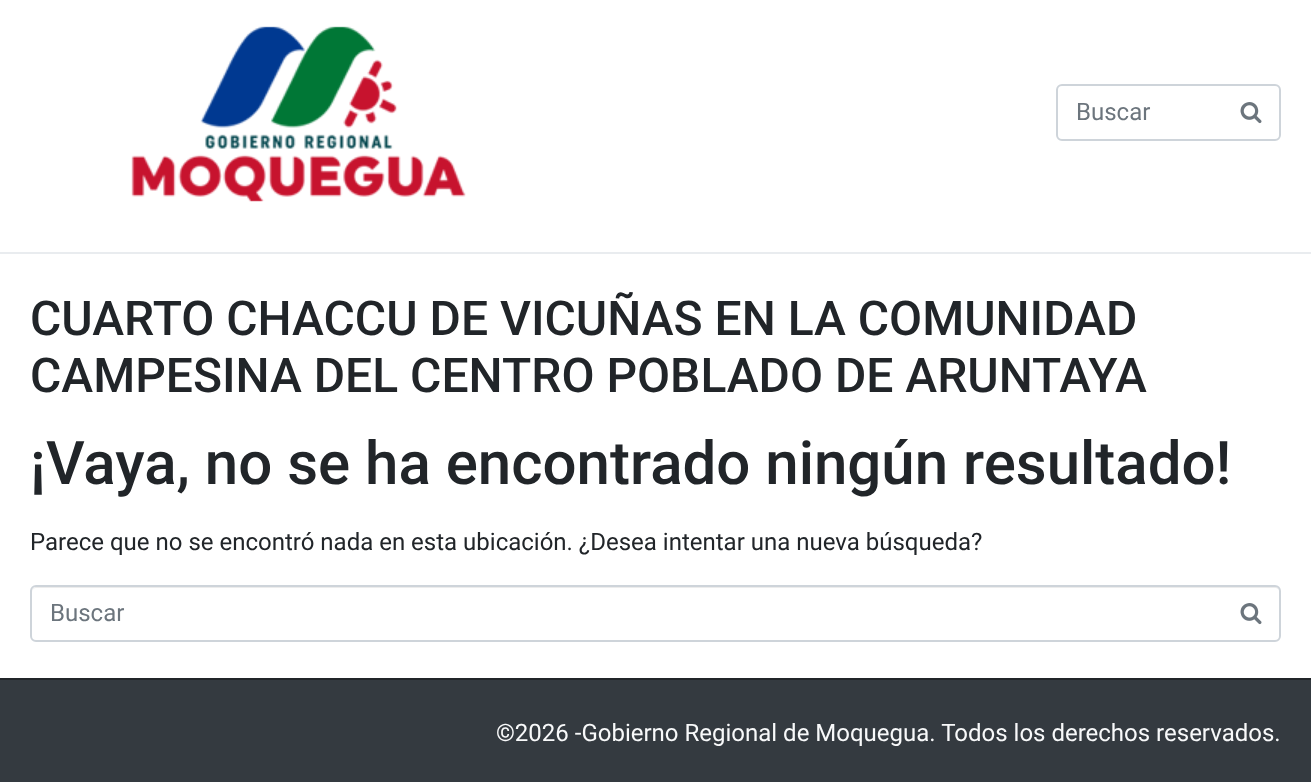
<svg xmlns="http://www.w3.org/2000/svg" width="1311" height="782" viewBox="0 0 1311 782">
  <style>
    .t1 { font: 24px Roboto; fill: #6c757d; }
    .t2 { font: 500 48px Roboto; fill: #212529; }
    .t3 { font: 500 60px Roboto; fill: #212529; }
    .t4 { font: 24px Roboto; fill: #212529; }
    .t5 { font: 24px Roboto; fill: #f8f9fa; }
  </style>
  <rect width="100%" height="100%" fill="#fff"/>
  <rect x="0" y="252" width="1311" height="2" fill="#e9ecef"/>
  <image x="131" y="26" width="335" height="176" href="images/1.png"/>
  <rect x="1057" y="85" width="223" height="55" rx="5" fill="none" stroke="#ced4da" stroke-width="2"/>
  <text x="1076" y="120" class="t1">Buscar</text>
  <image x="1240" y="102" width="22" height="22" href="images/2.png"/>
  <text x="30" y="335" class="t2">CUARTO CHACCU DE VICUÑAS EN LA COMUNIDAD</text>
  <text x="30" y="392" class="t2">CAMPESINA DEL CENTRO POBLADO DE ARUNTAYA</text>
  <text x="30" y="484" class="t3">¡Vaya, no se ha encontrado ningún resultado!</text>
  <text x="30" y="550" class="t4">Parece que no se encontró nada en esta ubicación. ¿Desea intentar una nueva búsqueda?</text>
  <path d="M36 588H1275C1277 588 1280 590 1280 592C1280 589 1278 587 1275 587H37C34 587 32 589 32 592C32 590 34 588 36 588Z" fill="#ececec"/>
  <rect x="31" y="586" width="1249" height="55" rx="5" fill="none" stroke="#ced4da" stroke-width="2"/>
  <text x="50" y="621" class="t1">Buscar</text>
  <image x="1240" y="603" width="22" height="22" href="images/2.png"/>
  <rect x="0" y="680" width="1311" height="102" fill="#343a40"/>
  <rect x="0" y="678" width="1311" height="2" fill="#212529"/>
  <text x="496" y="741" class="t5">©2026 -Gobierno Regional de Moquegua. Todos los derechos reservados.</text>
</svg>
